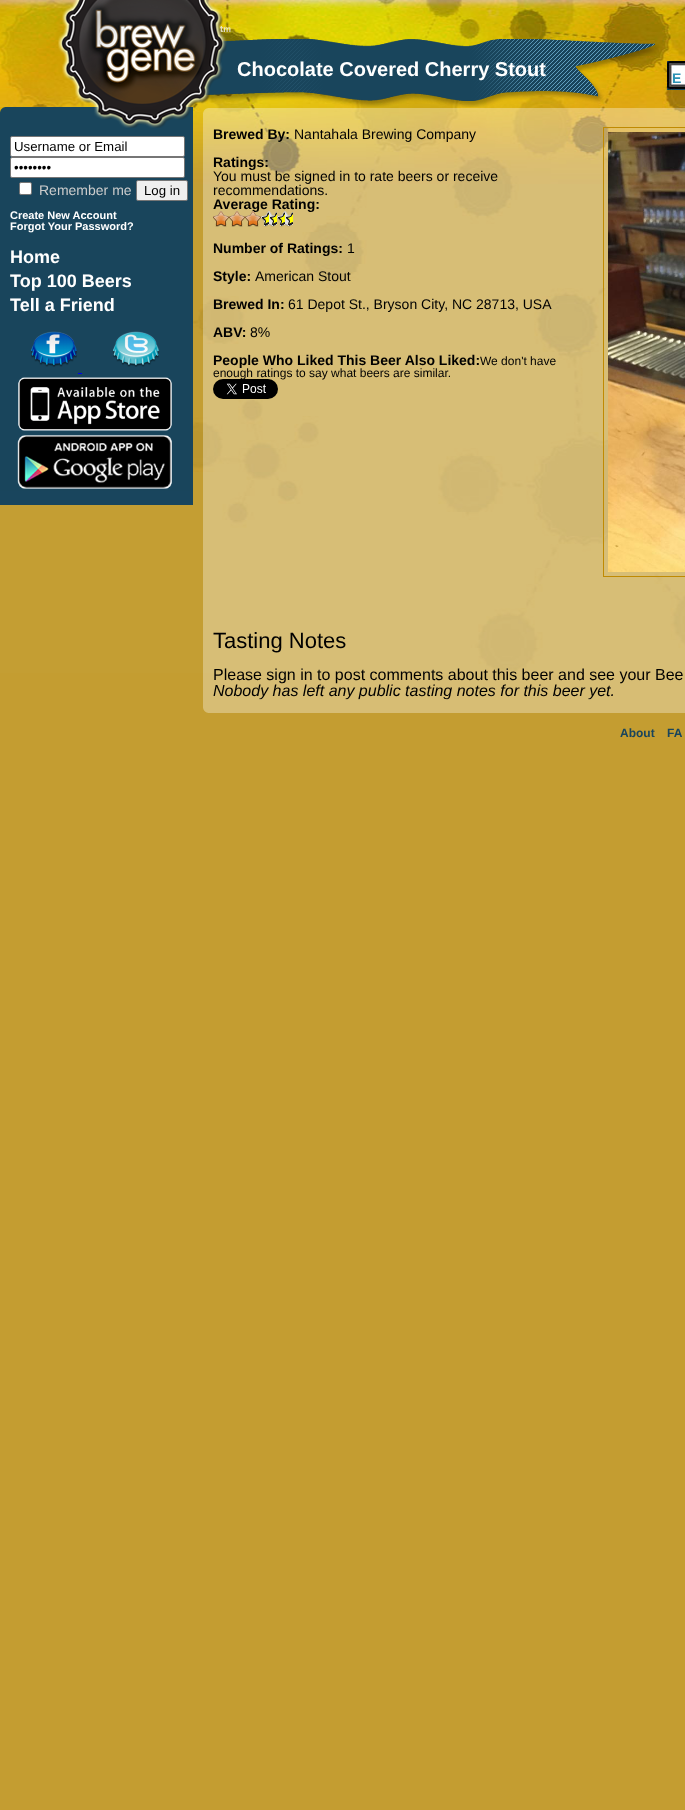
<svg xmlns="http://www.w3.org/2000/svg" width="685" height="1810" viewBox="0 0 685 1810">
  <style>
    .t1 { font: bold 20px Liberation Sans; fill: #fff; }
    .t2 { font: bold 14px Liberation Sans; fill: #2c93b5; }
    .t3 { font: 13.25px Liberation Sans; fill: #000; }
    .t4 { font: 14px Liberation Sans; fill: #ccc; }
    .t5 { font: bold 11px Liberation Sans; fill: #fff; }
    .t6 { font: bold 18px Liberation Sans; fill: #fff; }
    .t7 { font: bold 14px Liberation Sans; fill: #000; }
    .t8 { font: 14px Liberation Sans; fill: #000; }
    .t9 { font: 12px Liberation Sans; fill: #000; }
    .t10 { font: 22px Liberation Sans; fill: #000; }
    .t11 { font: 16px Liberation Sans; fill: #000; }
    .t12 { font: italic 16px Liberation Sans; fill: #000; }
    .t13 { font: bold 12px Liberation Sans; fill: #19455c; }
  </style>
  <rect width="100%" height="100%" fill="#c49d31"/>
  <image x="0" y="0" width="685" height="673" href="images/1.png"/>
  <image x="58" y="0" width="601" height="107" href="images/2.png"/>
  <text x="237" y="76" class="t1">Chocolate Covered Cherry Stout</text>
  <image x="667" y="61" width="18" height="29" href="images/3.png"/>
  <text x="672" y="83" class="t2">E</text>
  <image x="0" y="107" width="193" height="384" href="images/4.png"/>
  <rect x="10.5" y="136.5" width="174" height="20" rx="1.5" fill="#fff" stroke="#767676"/>
  <text x="14" y="151" class="t3">Username or Email</text>
  <rect x="10.5" y="157.5" width="174" height="20" rx="1.5" fill="#fff" stroke="#767676"/>
  <text x="14" y="172" class="t3">••••••••</text>
  <rect x="19.5" y="182.5" width="12" height="12" rx="1.5" fill="#fff" stroke="#767676"/>
  <text x="39" y="195" class="t4">Remember me</text>
  <rect x="136.5" y="180.5" width="51" height="20" rx="1.5" fill="#efefef" stroke="#767676"/>
  <text x="144" y="195" class="t3">Log in</text>
  <text x="10" y="219" class="t5">Create New Account</text>
  <text x="10" y="230" class="t5">Forgot Your Password?</text>
  <text x="10" y="263" class="t6">Home</text>
  <text x="10" y="287" class="t6">Top 100 Beers</text>
  <text x="10" y="311" class="t6">Tell a Friend</text>
  <image x="31" y="331" width="46" height="36" href="images/5.png"/>
  <image x="112" y="331" width="47" height="36" href="images/6.png"/>
  <rect x="78" y="373" width="4" height="1" fill="#00e"/>
  <image x="18" y="377" width="154" height="54" href="images/7.png"/>
  <image x="17" y="435" width="155" height="54" href="images/8.png"/>
  <rect x="0" y="491" width="193" height="14" fill="#19455d"/>
  <image x="203" y="108" width="482" height="9" href="images/9.png"/>
  <rect x="203" y="117" width="482" height="582" fill="#ffffff54"/>
  <text x="213" y="139" class="t7">Brewed By:</text>
  <text x="294" y="139" class="t8">Nantahala Brewing Company</text>
  <text x="213" y="167" class="t7">Ratings:</text>
  <text x="213" y="181" class="t8">You must be signed in to rate beers or receive</text>
  <text x="213" y="195" class="t8">recommendations.</text>
  <text x="213" y="209" class="t7">Average Rating:</text>
  <image x="213" y="211" width="8" height="16" href="images/10.png"/>
  <image x="213" y="211" width="8" height="16" href="images/11.png"/>
  <image x="221" y="211" width="8" height="16" href="images/12.png"/>
  <image x="221" y="211" width="8" height="16" href="images/13.png"/>
  <image x="229" y="211" width="8" height="16" href="images/10.png"/>
  <image x="229" y="211" width="8" height="16" href="images/11.png"/>
  <image x="237" y="211" width="8" height="16" href="images/12.png"/>
  <image x="237" y="211" width="8" height="16" href="images/13.png"/>
  <image x="245" y="211" width="8" height="16" href="images/14.png"/>
  <image x="245" y="211" width="8" height="16" href="images/11.png"/>
  <image x="253" y="211" width="8" height="16" href="images/15.png"/>
  <image x="253" y="211" width="8" height="16" href="images/16.png"/>
  <image x="261" y="211" width="8" height="16" href="images/10.png"/>
  <image x="261" y="212" width="8" height="14" href="images/17.png"/>
  <image x="269" y="211" width="5" height="16" href="images/18.png"/>
  <image x="270" y="212" width="7" height="14" href="images/19.png"/>
  <image x="277" y="211" width="8" height="16" href="images/10.png"/>
  <image x="277" y="212" width="8" height="14" href="images/17.png"/>
  <image x="285" y="211" width="5" height="16" href="images/18.png"/>
  <image x="286" y="212" width="7" height="14" href="images/19.png"/>
  <text x="213" y="253" class="t7">Number of Ratings:</text>
  <text x="347" y="253" class="t8">1</text>
  <text x="213" y="281" class="t7">Style:</text>
  <text x="255" y="281" class="t8">American Stout</text>
  <text x="213" y="309" class="t7">Brewed In:</text>
  <text x="288" y="309" class="t8">61 Depot St., Bryson City, NC 28713, USA</text>
  <text x="213" y="337" class="t7">ABV:</text>
  <text x="250" y="337" class="t8">8%</text>
  <text x="213" y="365" class="t7">People Who Liked This Beer Also Liked:</text>
  <text x="480" y="365" class="t9">We don't have</text>
  <text x="213" y="377" class="t9">enough ratings to say what beers are similar.</text>
  <image x="213" y="379" width="65" height="20" href="images/20.png"/>
  <rect x="603.5" y="127.5" width="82" height="449" fill="none" stroke="#c08a02"/>
  <image x="608" y="132" width="77" height="440" href="images/21.png"/>
  <text x="213" y="648" class="t10">Tasting Notes</text>
  <text x="213" y="680" class="t11">Please sign in to post comments about this beer and see your Bee</text>
  <text x="213" y="696" class="t12">Nobody has left any public tasting notes for this beer yet.</text>
  <image x="203" y="699" width="482" height="14" href="images/22.png"/>
  <text x="620" y="737" class="t13">About</text>
  <text x="667" y="737" class="t13">FA</text>
</svg>
